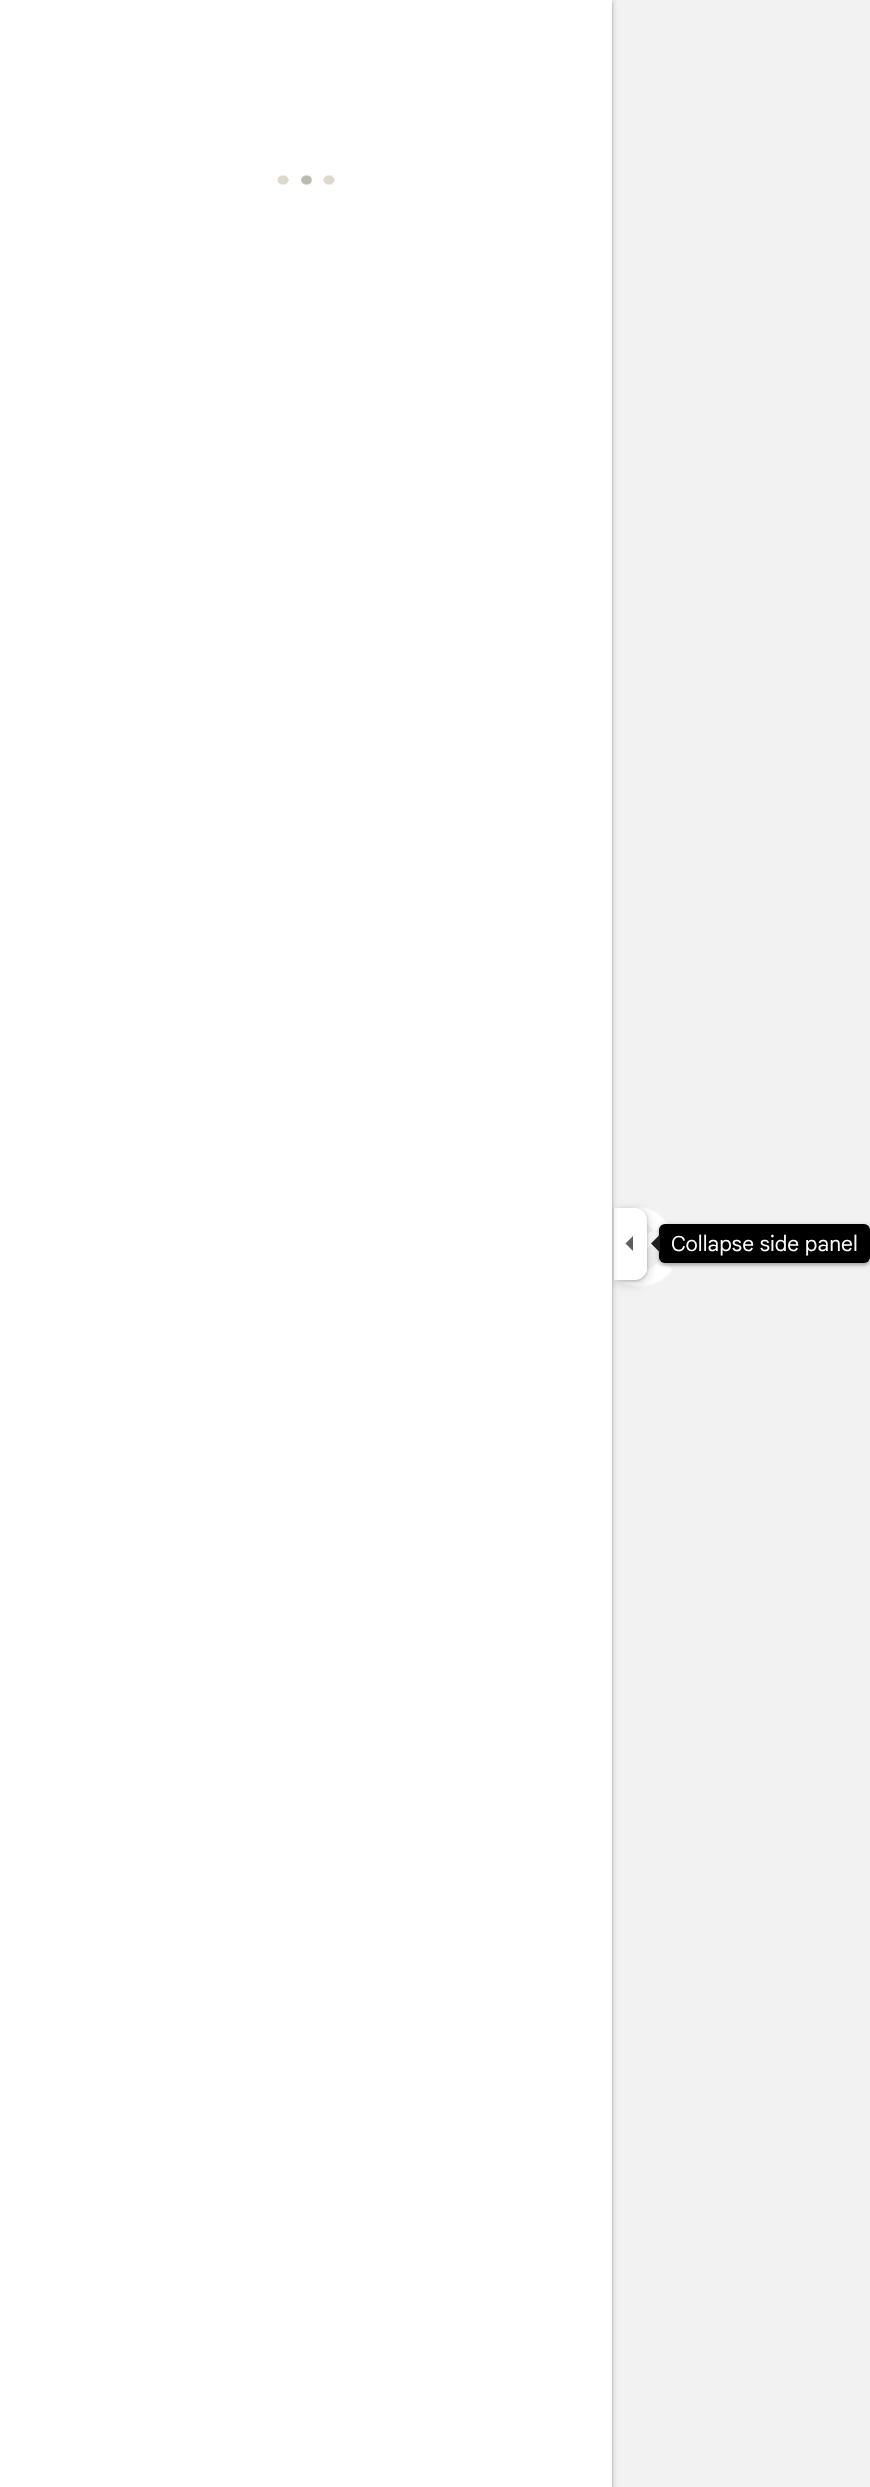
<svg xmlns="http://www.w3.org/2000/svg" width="870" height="2487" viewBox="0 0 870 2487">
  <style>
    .t1 { font: 21px Google Sans; letter-spacing: 0.1px; fill: #fff; }
  </style>
  <rect width="100%" height="100%" fill="#f2f2f2"/>
  <image x="616" y="1205" width="57" height="83" href="images/1.png"/>
  <rect x="609" y="1208" width="41" height="78" rx="15" fill="#3c404326" filter="blur(4.5px)"/>
  <rect x="612" y="1209" width="35" height="72" rx="12" fill="#3c40434d" filter="blur(1.5px)"/>
  <path d="M612 1208H635C641.5 1208 647 1213.5 647 1220V1268C647 1274.5 641.5 1280 635 1280H612Z" fill="#fff"/>
  <rect x="612" y="1208" width="2" height="72" fill="#e3e3e3"/>
  <rect x="-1" y="0" width="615" height="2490" fill="#3c404326" filter="blur(2px)"/>
  <rect x="0" y="2" width="612" height="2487" fill="#3c40434d" filter="blur(1.5px)"/>
  <rect x="0" y="0" width="612" height="2487" fill="#fff"/>
  <image x="277" y="174" width="58" height="12" href="images/2.png"/>
  <path d="M633 1251L625.5 1243.5L633 1236Z" fill="#5e5e5e"/>
  <rect x="657" y="1224" width="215" height="42" rx="8" fill="#3c404326" filter="blur(2px)"/>
  <rect x="659" y="1226" width="211" height="39" rx="6" fill="#3c40434d" filter="blur(1.5px)"/>
  <rect x="659" y="1224" width="211" height="39" rx="6" fill="#000"/>
  <path d="M660 1234.5V1252.5L651 1243.5Z" fill="#1f1f1f"/>
  <text x="671" y="1251" class="t1">Collapse side panel</text>
</svg>
